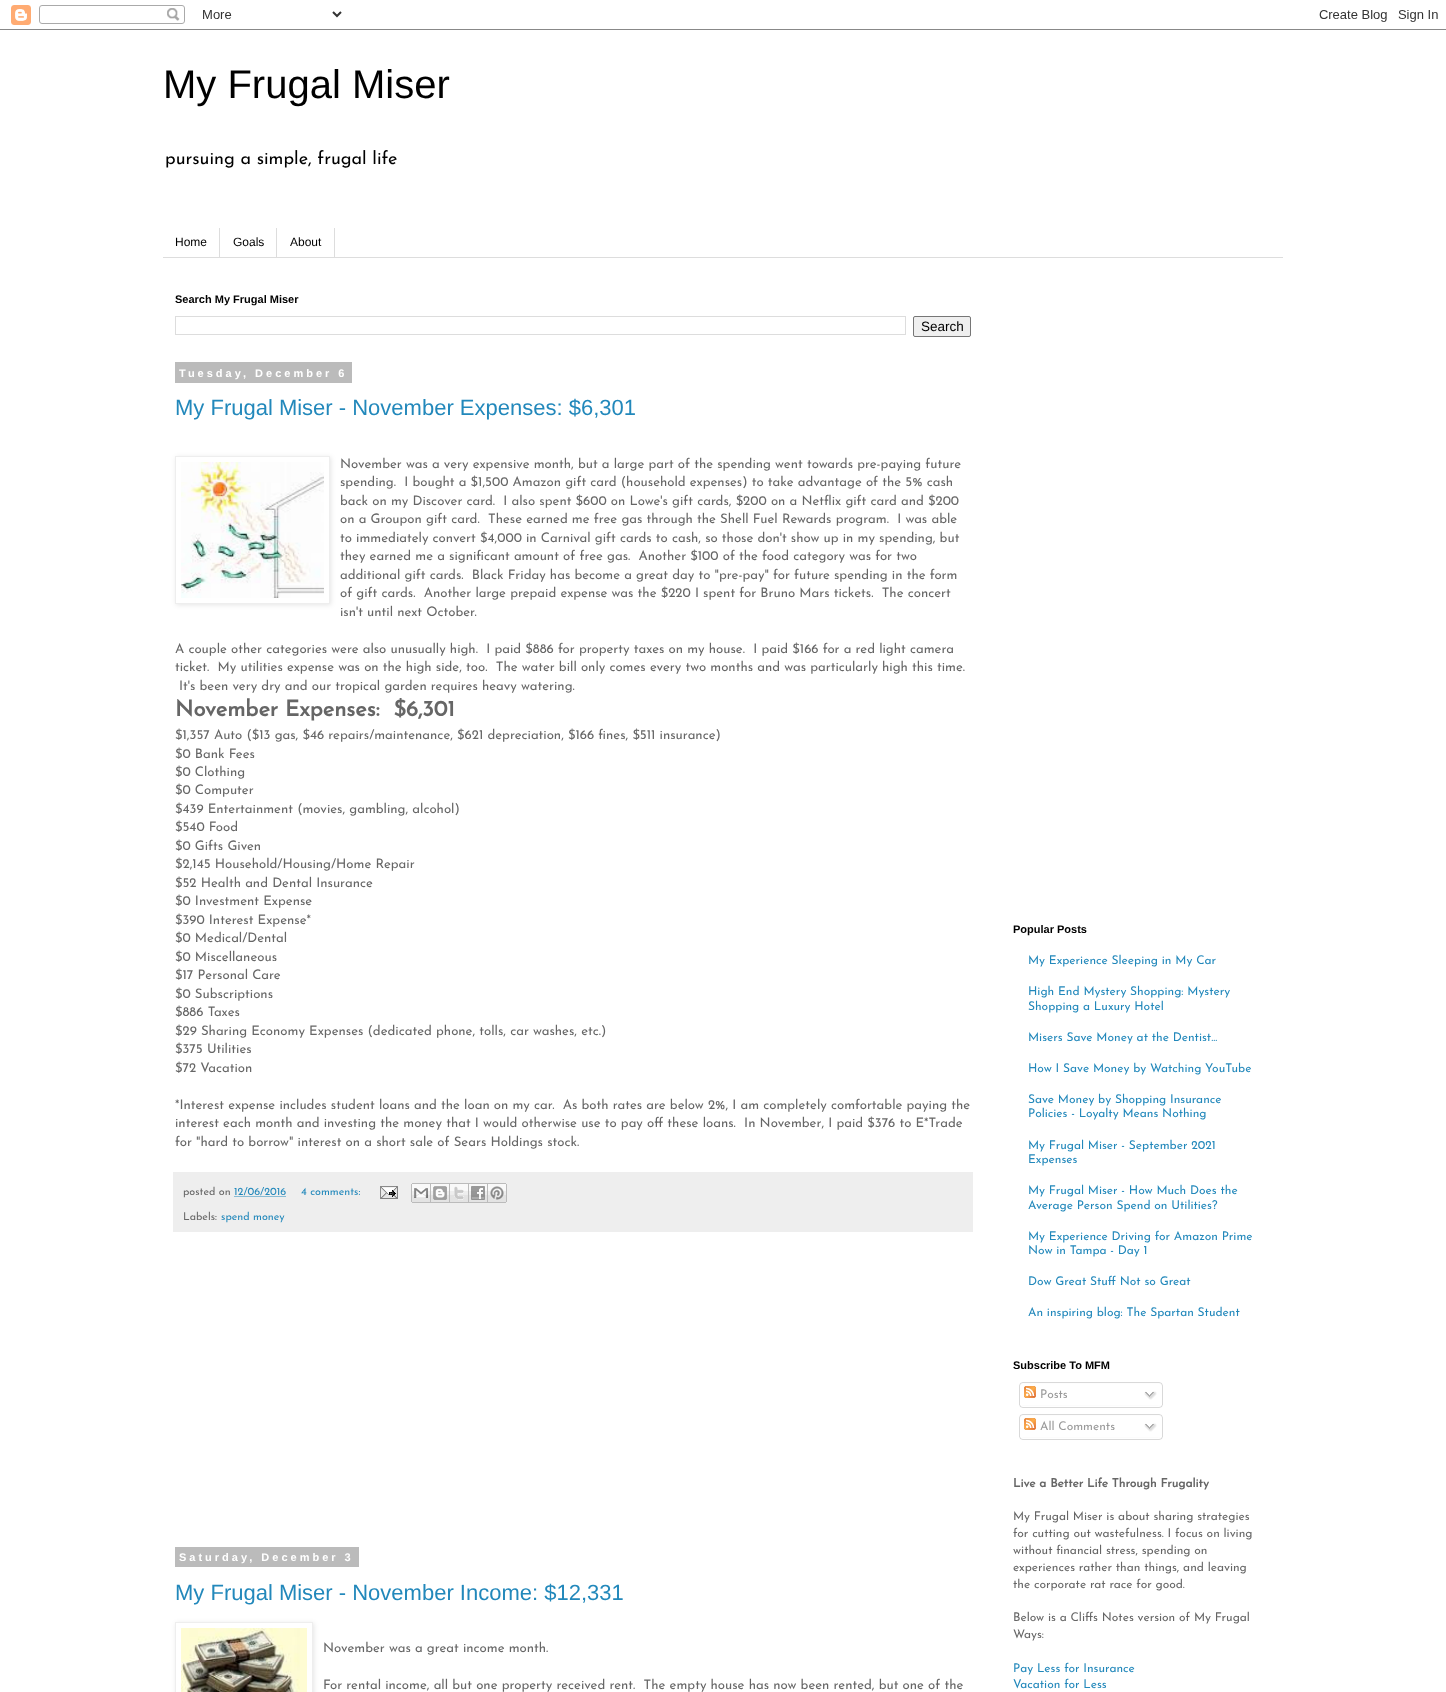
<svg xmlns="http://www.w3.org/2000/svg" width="1446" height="1692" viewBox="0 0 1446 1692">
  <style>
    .t1 { font: 40px Liberation Sans; fill: #000; }
    .t2 { font: 100 18px Josefin Sans; fill: #000; }
    .t3 { font: 12px Liberation Sans; fill: #000; }
    .t4 { font: bold 11px Liberation Sans; fill: #000; }
    .t5 { font: 13.5px Liberation Sans; fill: #000; }
    .t6 { font: bold 11px Liberation Sans; letter-spacing: 3px; fill: #fff; }
    .t7 { font: 22px Liberation Sans; fill: #28b; }
    .t8 { font: 100 13.2px Josefin Sans; fill: #666; }
    .t9 { font: bold 22px Josefin Sans; fill: #666; }
    .t10 { font: 100 10.75px Josefin Sans; fill: #666; }
    .t11 { font: 100 10.75px Josefin Sans; fill: #28b; }
    .t12 { font: 100 12px Josefin Sans; fill: #28b; }
    .t13 { font: 100 12px Josefin Sans; fill: #999; }
    .t14 { font: bold 12px Josefin Sans; fill: #666; }
    .t15 { font: 100 12px Josefin Sans; fill: #666; }
  </style>
  <defs>
    <clipPath id="clip1"><path d="M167 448H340V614H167ZM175 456H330V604H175Z" clip-rule="evenodd"/></clipPath>
    <clipPath id="clip2"><path d="M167 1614H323V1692H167ZM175 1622H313V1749H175Z" clip-rule="evenodd"/></clipPath>
  </defs>
  <rect width="100%" height="100%" fill="#fff"/>
  <image x="0" y="5" width="1446" height="25" href="images/1.png"/>
  <text x="163" y="98" class="t1">My Frugal Miser</text>
  <text x="165" y="164" class="t2">pursuing a simple, frugal life</text>
  <rect x="163" y="257" width="1120" height="1" fill="#ddd"/>
  <rect x="219" y="228" width="1" height="29" fill="#ddd"/>
  <text x="175" y="246" class="t3">Home</text>
  <rect x="276" y="228" width="1" height="29" fill="#ddd"/>
  <text x="233" y="246" class="t3">Goals</text>
  <rect x="334" y="228" width="1" height="29" fill="#ddd"/>
  <text x="290" y="246" class="t3">About</text>
  <text x="175" y="303" class="t4">Search My Frugal Miser</text>
  <rect x="175.5" y="316.5" width="730" height="18" fill="none" stroke="#ddd"/>
  <rect x="913.5" y="316.5" width="57" height="20" rx="1.5" fill="#efefef" stroke="#767676"/>
  <text x="921" y="331" class="t5">Search</text>
  <rect x="175" y="362" width="177" height="21" fill="#bbb"/>
  <text x="179" y="377" class="t6">Tuesday, December 6</text>
  <text x="175" y="415" class="t7">My Frugal Miser - November Expenses: $6,301</text>
  <g clip-path="url(#clip1)">
    <rect x="176" y="457" width="155" height="148" fill="#0000001a" filter="blur(2.5px)"/>
  </g>
  <rect x="175.5" y="456.5" width="154" height="147" fill="none" stroke="#eee"/>
  <image x="181" y="462" width="143" height="136" href="images/2.png"/>
  <text x="340" y="468" class="t8">November was a very expensive month, but a large part of the spending went towards pre-paying future</text>
  <text x="340" y="486" class="t8" xml:space="preserve">spending.  I bought a $1,500 Amazon gift card (household expenses) to take advantage of the 5% cash</text>
  <text x="340" y="505" class="t8" xml:space="preserve">back on my Discover card.  I also spent $600 on Lowe's gift cards, $200 on a Netflix gift card and $200</text>
  <text x="340" y="523" class="t8" xml:space="preserve">on a Groupon gift card.  These earned me free gas through the Shell Fuel Rewards program.  I was able</text>
  <text x="340" y="542" class="t8">to immediately convert $4,000 in Carnival gift cards to cash, so those don't show up in my spending, but</text>
  <text x="340" y="560" class="t8" xml:space="preserve">they earned me a significant amount of free gas.  Another $100 of the food category was for two</text>
  <text x="340" y="579" class="t8" xml:space="preserve">additional gift cards.  Black Friday has become a great day to "pre-pay" for future spending in the form</text>
  <text x="340" y="597" class="t8" xml:space="preserve">of gift cards.  Another large prepaid expense was the $220 I spent for Bruno Mars tickets.  The concert</text>
  <text x="340" y="616" class="t8">isn't until next October.</text>
  <text x="175" y="653" class="t8" xml:space="preserve">A couple other categories were also unusually high.  I paid $886 for property taxes on my house.  I paid $166 for a red light camera</text>
  <text x="175" y="671" class="t8" xml:space="preserve">ticket.  My utilities expense was on the high side, too.  The water bill only comes every two months and was particularly high this time.</text>
  <text x="179" y="690" class="t8">It's been very dry and our tropical garden requires heavy watering.</text>
  <text x="175" y="716" class="t9" xml:space="preserve">November Expenses:  $6,301</text>
  <text x="175" y="739" class="t8">$1,357 Auto ($13 gas, $46 repairs/maintenance, $621 depreciation, $166 fines, $511 insurance)</text>
  <text x="175" y="758" class="t8">$0 Bank Fees</text>
  <text x="175" y="776" class="t8">$0 Clothing</text>
  <text x="175" y="794" class="t8">$0 Computer</text>
  <text x="175" y="813" class="t8">$439 Entertainment (movies, gambling, alcohol)</text>
  <text x="175" y="831" class="t8">$540 Food</text>
  <text x="175" y="850" class="t8">$0 Gifts Given</text>
  <text x="175" y="868" class="t8">$2,145 Household/Housing/Home Repair</text>
  <text x="175" y="887" class="t8">$52 Health and Dental Insurance</text>
  <text x="175" y="905" class="t8">$0 Investment Expense</text>
  <text x="175" y="924" class="t8">$390 Interest Expense*</text>
  <text x="175" y="942" class="t8">$0 Medical/Dental</text>
  <text x="175" y="961" class="t8">$0 Miscellaneous</text>
  <text x="175" y="979" class="t8">$17 Personal Care</text>
  <text x="175" y="998" class="t8">$0 Subscriptions</text>
  <text x="175" y="1016" class="t8">$886 Taxes</text>
  <text x="175" y="1035" class="t8">$29 Sharing Economy Expenses (dedicated phone, tolls, car washes, etc.)</text>
  <text x="175" y="1053" class="t8">$375 Utilities</text>
  <text x="175" y="1072" class="t8">$72 Vacation</text>
  <text x="175" y="1109" class="t8" xml:space="preserve">*Interest expense includes student loans and the loan on my car.  As both rates are below 2%, I am completely comfortable paying the</text>
  <text x="175" y="1127" class="t8" xml:space="preserve">interest each month and investing the money that I would otherwise use to pay off these loans.  In November, I paid $376 to E*Trade</text>
  <text x="175" y="1146" class="t8">for "hard to borrow" interest on a short sale of Sears Holdings stock.</text>
  <rect x="173" y="1172" width="800" height="60" fill="#eee"/>
  <text x="183" y="1195" class="t10">posted on</text>
  <text x="234" y="1195" class="t11">12/06/2016</text>
  <path d="M234.5 1196.5H286.5" fill="none" stroke="#28b" stroke-dasharray="1 1"/>
  <text x="301" y="1195" class="t11">4 comments:</text>
  <image x="380" y="1186" width="18" height="13" href="images/3.png"/>
  <image x="411" y="1183" width="20" height="20" href="images/4.png"/>
  <image x="431" y="1183" width="19" height="20" href="images/5.png"/>
  <image x="450" y="1183" width="19" height="20" href="images/6.png"/>
  <image x="469" y="1183" width="19" height="20" href="images/7.png"/>
  <image x="488" y="1183" width="19" height="20" href="images/8.png"/>
  <text x="183" y="1220" class="t10">Labels:</text>
  <text x="221" y="1220" class="t11">spend money</text>
  <rect x="175" y="1547" width="184" height="20" fill="#bbb"/>
  <text x="179" y="1561" class="t6">Saturday, December 3</text>
  <text x="175" y="1600" class="t7">My Frugal Miser - November Income: $12,331</text>
  <g clip-path="url(#clip2)">
    <rect x="176" y="1623" width="138" height="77" fill="#0000001a" filter="blur(2.5px)"/>
  </g>
  <rect x="175.5" y="1622.5" width="137" height="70" fill="none" stroke="#eee"/>
  <image x="181" y="1628" width="126" height="64" href="images/9.png"/>
  <text x="323" y="1652" class="t8">November was a great income month.</text>
  <text x="323" y="1689" class="t8" xml:space="preserve">For rental income, all but one property received rent.  The empty house has now been rented, but one of the</text>
  <text x="1013" y="933" class="t4">Popular Posts</text>
  <text x="1028" y="964" class="t12">My Experience Sleeping in My Car</text>
  <text x="1028" y="995" class="t12">High End Mystery Shopping: Mystery</text>
  <text x="1028" y="1010" class="t12">Shopping a Luxury Hotel</text>
  <text x="1028" y="1041" class="t12">Misers Save Money at the Dentist...</text>
  <text x="1028" y="1072" class="t12">How I Save Money by Watching YouTube</text>
  <text x="1028" y="1103" class="t12">Save Money by Shopping Insurance</text>
  <text x="1028" y="1117" class="t12">Policies - Loyalty Means Nothing</text>
  <text x="1028" y="1149" class="t12">My Frugal Miser - September 2021</text>
  <text x="1028" y="1163" class="t12">Expenses</text>
  <text x="1028" y="1194" class="t12">My Frugal Miser - How Much Does the</text>
  <text x="1028" y="1209" class="t12">Average Person Spend on Utilities?</text>
  <text x="1028" y="1240" class="t12">My Experience Driving for Amazon Prime</text>
  <text x="1028" y="1254" class="t12">Now in Tampa - Day 1</text>
  <text x="1028" y="1285" class="t12">Dow Great Stuff Not so Great</text>
  <text x="1028" y="1316" class="t12">An inspiring blog: The Spartan Student</text>
  <text x="1013" y="1369" class="t4">Subscribe To MFM</text>
  <image x="1019" y="1382" width="144" height="23" href="images/10.png"/>
  <image x="1024" y="1386" width="12" height="12" href="images/11.png"/>
  <text x="1040" y="1398" class="t13">Posts</text>
  <image x="1144" y="1391" width="13" height="9" href="images/12.png"/>
  <image x="1019" y="1405" width="144" height="3" href="images/13.png"/>
  <image x="1019" y="1414" width="144" height="23" href="images/10.png"/>
  <image x="1024" y="1418" width="12" height="12" href="images/11.png"/>
  <text x="1040" y="1430" class="t13">All Comments</text>
  <image x="1144" y="1423" width="13" height="9" href="images/12.png"/>
  <image x="1019" y="1437" width="144" height="3" href="images/13.png"/>
  <text x="1013" y="1487" class="t14">Live a Better Life Through Frugality</text>
  <text x="1013" y="1520" class="t15">My Frugal Miser is about sharing strategies</text>
  <text x="1013" y="1537" class="t15">for cutting out wastefulness. I focus on living</text>
  <text x="1013" y="1554" class="t15">without financial stress, spending on</text>
  <text x="1013" y="1571" class="t15">experiences rather than things, and leaving</text>
  <text x="1013" y="1588" class="t15">the corporate rat race for good.</text>
  <text x="1013" y="1621" class="t15">Below is a Cliffs Notes version of My Frugal</text>
  <text x="1013" y="1638" class="t15">Ways:</text>
  <text x="1013" y="1672" class="t12">Pay Less for Insurance</text>
  <text x="1013" y="1688" class="t12">Vacation for Less</text>
</svg>
